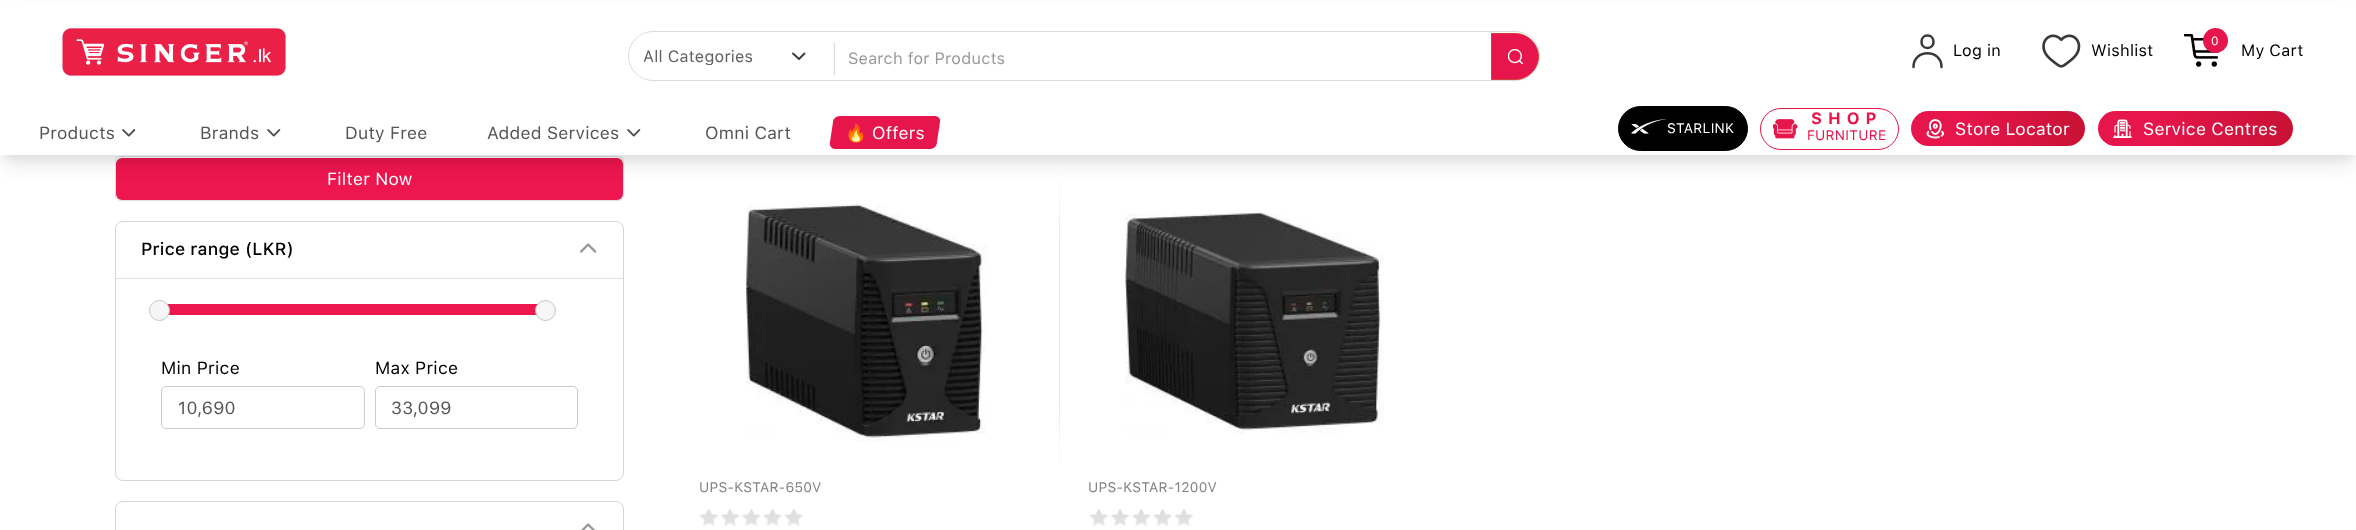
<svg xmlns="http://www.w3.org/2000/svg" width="2356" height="530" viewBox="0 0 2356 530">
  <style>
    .t1 { font: 16.25px SF Pro Text; letter-spacing: 0.25px; fill: #606060; }
    .t2 { font: 16.25px SF Pro Text; letter-spacing: 0.25px; fill: #999; }
    .t3 { font: 16.25px SF Pro Text; letter-spacing: 0.25px; fill: #000; }
    .t4 { font: 12px SF Pro Text; letter-spacing: 0.25px; fill: #fff; }
    .t5 { font: 17.5px SF Pro Text; letter-spacing: 0.25px; fill: #555; }
    .t6 { font: 17.5px Noto Color Emoji; letter-spacing: 0.25px; fill: #fff; }
    .t7 { font: 17.5px SF Pro Text; letter-spacing: 0.25px; fill: #fff; }
    .t8 { font: 13.75px SF Pro Text; letter-spacing: 0.25px; fill: #fff; }
    .t9 { font: bold 16.25px SF Pro Text; letter-spacing: 6px; fill: #e6154b; }
    .t10 { font: 13.75px SF Pro Text; letter-spacing: 0.25px; fill: #e6154b; }
    .t11 { font: 500 17.5px SF Pro Text; letter-spacing: 0.25px; fill: #000; }
    .t12 { font: 17.5px SF Pro Text; letter-spacing: 0.25px; fill: #000; }
    .t13 { font: 13.75px SF Pro Text; letter-spacing: 0.25px; fill: #828282; }
  </style>
  <defs>
    <linearGradient id="g1" gradientUnits="userSpaceOnUse" x1="1059" y1="470" x2="1059" y2="174"><stop offset="0" stop-color="#fff"/><stop offset="0.25" stop-color="#e6e6e6"/><stop offset="0.75" stop-color="#e6e6e6"/><stop offset="1" stop-color="#fff"/></linearGradient>
    <clipPath id="clip1"><rect x="644" y="49" width="135" height="16"/></clipPath>
    <linearGradient id="g2" gradientUnits="userSpaceOnUse" x1="1911" y1="129" x2="2085" y2="129"><stop offset="0.3" stop-color="#e6154b"/><stop offset="1" stop-color="#c81234"/></linearGradient>
    <linearGradient id="g3" gradientUnits="userSpaceOnUse" x1="2098" y1="129" x2="2293" y2="129"><stop offset="0.3" stop-color="#e6154b"/><stop offset="1" stop-color="#c81234"/></linearGradient>
  </defs>
  <rect width="100%" height="100%" fill="#fff"/>
  <rect x="115.5" y="156.5" width="508" height="44" rx="4.5" fill="none" stroke="#dee2e6"/>
  <rect x="116" y="158" width="507" height="42" rx="6" fill="#ed164e"/>
  <rect x="3" y="8" width="2351" height="150" fill="#0000000d" filter="blur(4px)"/>
  <rect x="1059" y="174" width="1" height="296" fill="url(#g1)"/>
  <rect x="4" y="16" width="2349" height="148" fill="#0000001a" filter="blur(9.5px)"/>
  <rect x="0" y="2" width="2356" height="153" fill="#fff"/>
  <image x="62" y="28" width="224" height="48" href="images/1.png"/>
  <rect x="628.5" y="31.5" width="911" height="49" rx="24.5" fill="none" stroke="#dcdcdc"/>
  <path d="M793 53.5L799 59L804.5 53.5" fill="none" stroke="#343a40" stroke-width="1.9" stroke-linecap="round" stroke-linejoin="round"/>
  <g clip-path="url(#clip1)">
    <text x="643" y="62" class="t1">All Categories</text>
  </g>
  <image x="833" y="43" width="2" height="32" href="images/2.png"/>
  <text x="848" y="64" class="t2">Search for Products</text>
  <path d="M1491.5 33.5H1515.5C1528 33.5 1538.5 44 1538.5 56.5C1538.5 69 1528 79.5 1515.5 79.5H1491.5Z" fill="#e6154b" stroke="#d43f3a"/>
  <image x="1508" y="49" width="15" height="15" href="images/3.png"/>
  <path d="M1927.5 48C1935.5 48 1935.5 35.5 1927.5 35.5C1919.5 35.5 1919.5 48 1927.5 48ZM1941.5 67C1941.5 48.5 1913.5 48.5 1913.5 67" fill="none" stroke="#393939" stroke-width="2.5" stroke-linecap="round" stroke-linejoin="round"/>
  <text x="1953" y="56" class="t3">Log in</text>
  <image x="2042" y="34" width="39" height="34" href="images/4.png"/>
  <text x="2091" y="56" class="t3">Wishlist</text>
  <image x="2184" y="34" width="35" height="33" href="images/5.png"/>
  <circle cx="2215.5" cy="40.5" r="12.5" fill="#e6154b"/>
  <text x="2211" y="45" class="t4">0</text>
  <text x="2241" y="56" class="t3">My Cart</text>
  <text x="39" y="139" class="t5">Products</text>
  <image x="122" y="129" width="14" height="8" href="images/6.png"/>
  <text x="200" y="139" class="t5">Brands</text>
  <image x="267" y="129" width="14" height="8" href="images/6.png"/>
  <text x="345" y="139" class="t5">Duty Free</text>
  <text x="487" y="139" class="t5">Added Services</text>
  <image x="627" y="129" width="14" height="8" href="images/6.png"/>
  <text x="705" y="139" class="t5">Omni Cart</text>
  <path d="M840 116H935C938 116 941 119 940 122L937 142C937 146 934 149 930 149H835C832 149 829 146 830 142L833 122C833 119 836 116 840 116Z" fill="#e6154b"/>
  <text x="845" y="139" class="t6">🔥</text>
  <text x="872" y="139" class="t7">Offers</text>
  <rect x="1618.5" y="106.5" width="129" height="44" rx="22" fill="#000" stroke="#000"/>
  <image x="1631" y="119" width="35" height="15" href="images/7.png"/>
  <text x="1667" y="133" class="t8">STARLINK</text>
  <rect x="1760.5" y="108.5" width="138" height="41" rx="20.5" fill="none" stroke="#e6154b"/>
  <image x="1773" y="119" width="25" height="20" href="images/8.png"/>
  <text x="1811" y="124" class="t9">SHOP</text>
  <text x="1807" y="140" class="t10">FURNITURE</text>
  <rect x="1911" y="111" width="174" height="35" rx="17.5" fill="url(#g2)"/>
  <image x="1926" y="119" width="18" height="20" href="images/9.png"/>
  <text x="1955" y="135" class="t7">Store Locator</text>
  <rect x="2098" y="111" width="195" height="35" rx="17.5" fill="url(#g3)"/>
  <image x="2113" y="119" width="19" height="19" href="images/10.png"/>
  <text x="2143" y="135" class="t7">Service Centres</text>
  <text x="327" y="185" class="t7">Filter Now</text>
  <rect x="115.5" y="221.5" width="508" height="259" rx="7.5" fill="none" stroke="#d7d7d7"/>
  <rect x="116" y="278" width="507" height="1" fill="#ddd"/>
  <text x="141" y="255" class="t11">Price range (LKR)</text>
  <image x="580" y="243" width="17" height="10" href="images/11.png"/>
  <rect x="158.5" y="304.5" width="386" height="9" fill="none" stroke="#ed164e"/>
  <rect x="168" y="305" width="369" height="10" fill="#ed164e"/>
  <circle cx="159.5" cy="310.5" r="10" fill="#f6f6f6" stroke="#c5c5c5"/>
  <circle cx="545.5" cy="310.5" r="10" fill="#f6f6f6" stroke="#c5c5c5"/>
  <text x="161" y="374" class="t12">Min Price</text>
  <rect x="161.5" y="386.5" width="203" height="42" rx="4.5" fill="none" stroke="#ccc"/>
  <text x="178" y="414" class="t5">10,690</text>
  <text x="375" y="374" class="t12">Max Price</text>
  <rect x="375.5" y="386.5" width="202" height="42" rx="4.5" fill="none" stroke="#ccc"/>
  <text x="391" y="414" class="t5">33,099</text>
  <rect x="115.5" y="501.5" width="508" height="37" rx="7.5" fill="none" stroke="#d7d7d7"/>
  <image x="581" y="523" width="14" height="7" href="images/12.png"/>
  <image x="746" y="204" width="241" height="238" href="images/13.png"/>
  <text x="699" y="492" class="t13">UPS-KSTAR-650V</text>
  <image x="699" y="508" width="20" height="18" href="images/14.png"/>
  <image x="700" y="510" width="17" height="12" href="images/15.png"/>
  <image x="721" y="508" width="19" height="18" href="images/16.png"/>
  <image x="722" y="510" width="16" height="5" href="images/17.png"/>
  <image x="742" y="508" width="19" height="18" href="images/18.png"/>
  <image x="743" y="510" width="17" height="12" href="images/19.png"/>
  <image x="763" y="508" width="19" height="18" href="images/20.png"/>
  <image x="764" y="510" width="17" height="12" href="images/21.png"/>
  <image x="784" y="508" width="20" height="18" href="images/22.png"/>
  <image x="785" y="510" width="17" height="12" href="images/23.png"/>
  <image x="1124" y="212" width="260" height="222" href="images/24.png"/>
  <text x="1088" y="492" class="t13">UPS-KSTAR-1200V</text>
  <image x="1089" y="508" width="20" height="18" href="images/14.png"/>
  <image x="1090" y="510" width="17" height="12" href="images/15.png"/>
  <image x="1111" y="508" width="19" height="18" href="images/16.png"/>
  <image x="1112" y="510" width="16" height="5" href="images/17.png"/>
  <image x="1132" y="508" width="19" height="18" href="images/18.png"/>
  <image x="1133" y="510" width="17" height="12" href="images/19.png"/>
  <image x="1153" y="508" width="19" height="18" href="images/25.png"/>
  <image x="1154" y="510" width="17" height="12" href="images/26.png"/>
  <image x="1174" y="508" width="20" height="18" href="images/14.png"/>
  <image x="1175" y="510" width="17" height="12" href="images/15.png"/>
</svg>
